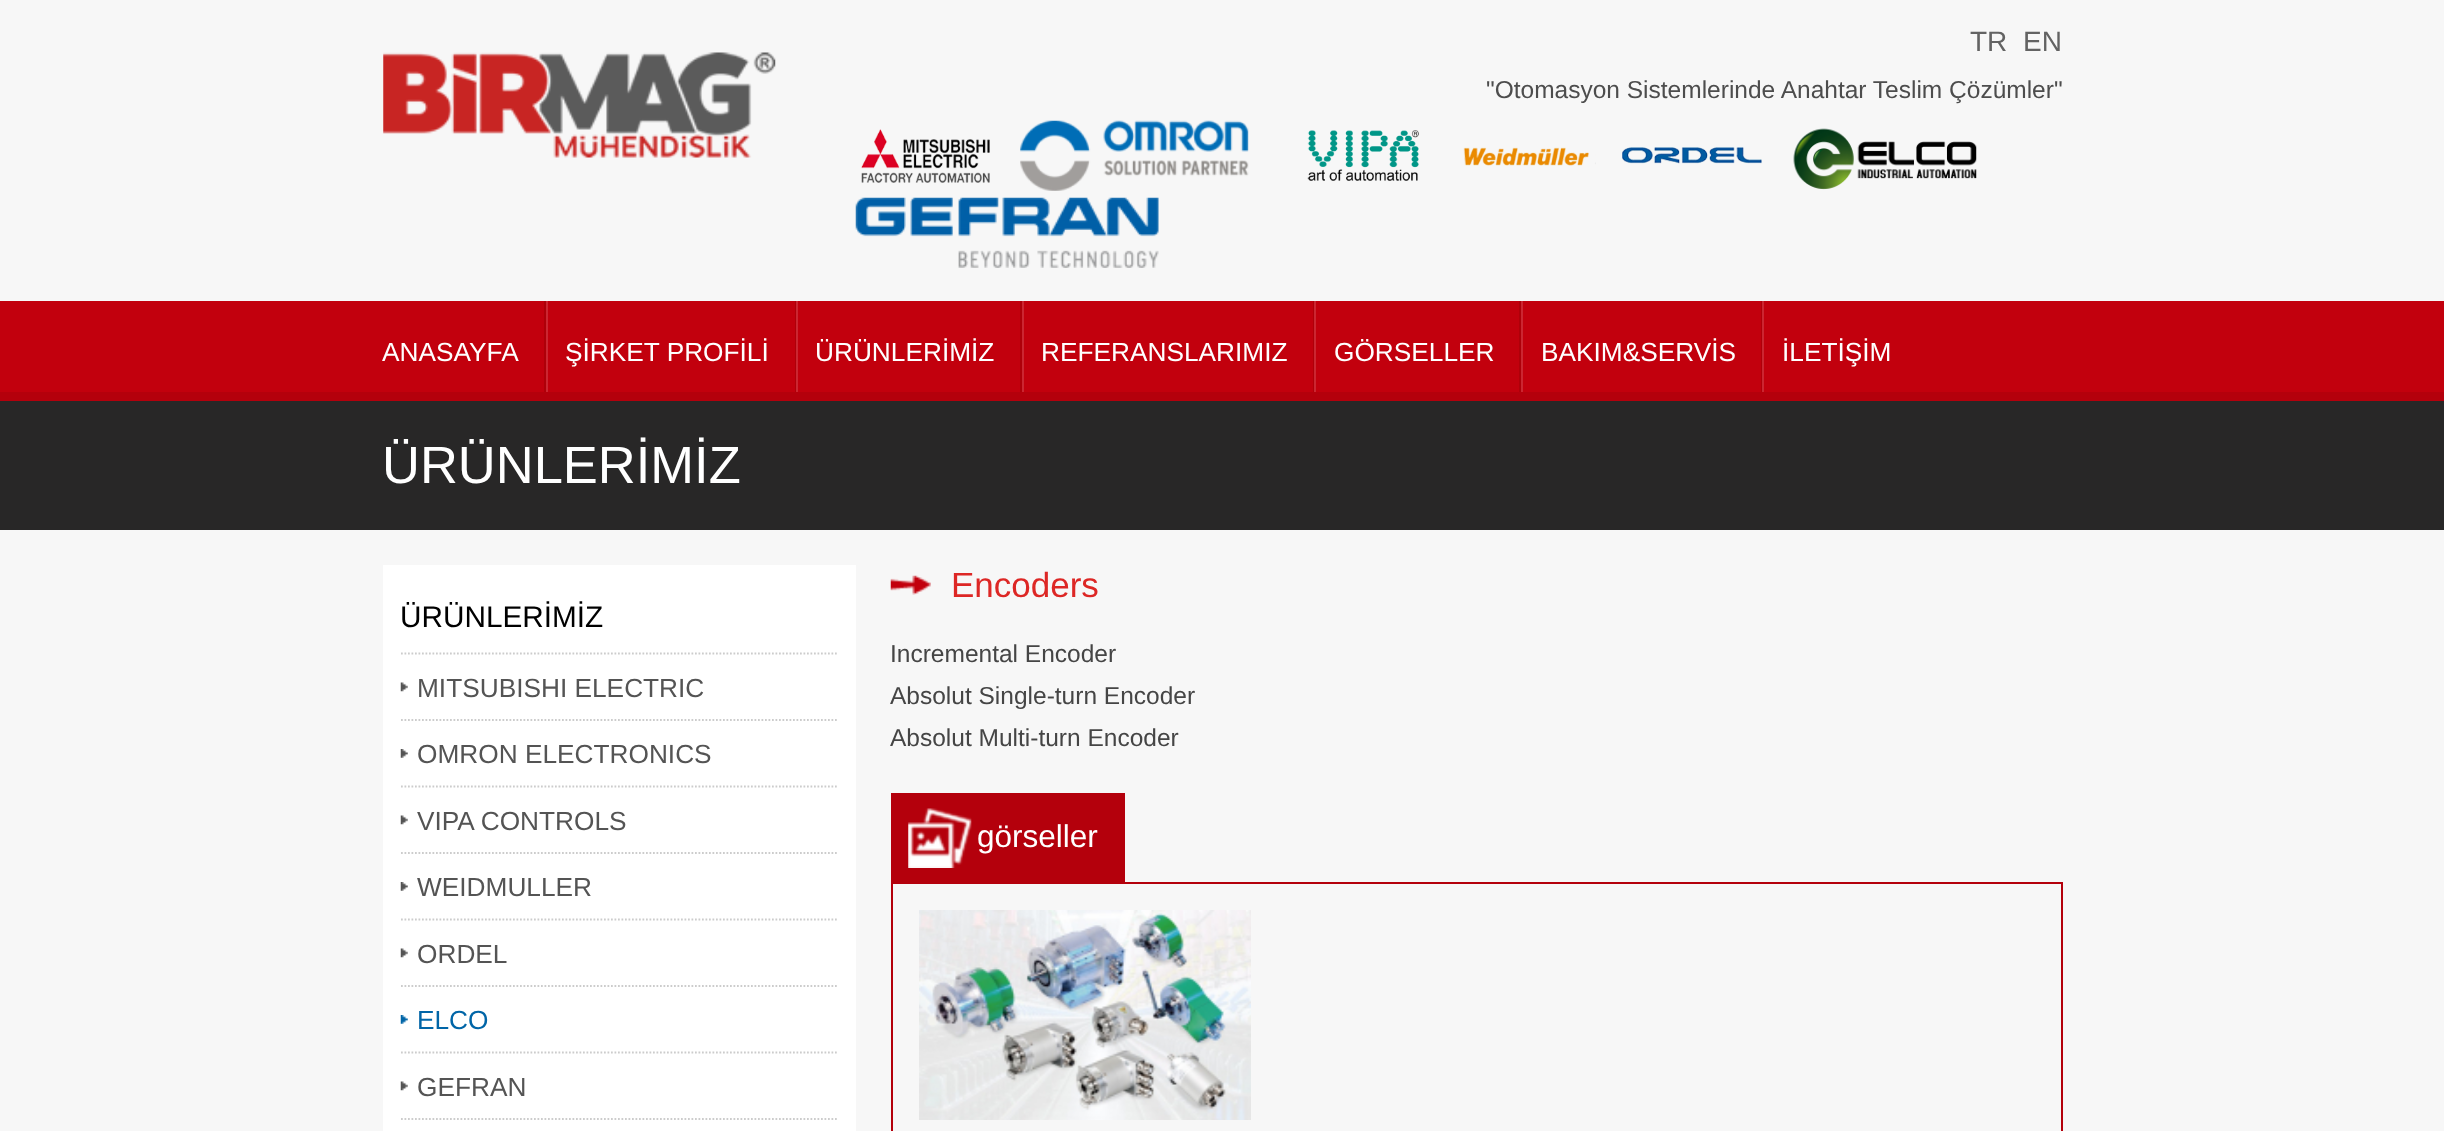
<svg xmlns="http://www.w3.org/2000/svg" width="2444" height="1131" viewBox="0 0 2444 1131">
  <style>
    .t1 { font: 28px Liberation Sans; fill: #636363; }
    .t2 { font: 24.5px Liberation Sans; fill: #4d4d4d; }
    .t3 { font: 26.25px Liberation Sans; fill: #fff; }
    .t4 { font: 52.5px Liberation Sans; fill: #fff; }
    .t5 { font: 29.75px Liberation Sans; fill: #000; }
    .t6 { font: 26.25px Liberation Sans; fill: #545454; }
    .t7 { font: 26.25px Liberation Sans; fill: #0065a7; }
    .t8 { font: 35px Liberation Sans; fill: #dd2725; }
    .t9 { font: 24.5px Liberation Sans; fill: #454545; }
    .t10 { font: 31.5px Liberation Sans; fill: #fff; }
  </style>
  <rect width="100%" height="100%" fill="#f7f7f7"/>
  <image x="383" y="52" width="393" height="106" href="images/1.png"/>
  <text x="1970" y="51" class="t1">TR</text>
  <text x="2023" y="51" class="t1">EN</text>
  <text x="1486" y="98" class="t2">"Otomasyon Sistemlerinde Anahtar Teslim Çözümler"</text>
  <image x="861" y="129" width="129" height="54" href="images/2.png"/>
  <image x="1020" y="120" width="229" height="71" href="images/3.png"/>
  <image x="1307" y="130" width="112" height="51" href="images/4.png"/>
  <image x="1463" y="147" width="133" height="19" href="images/5.png"/>
  <image x="1622" y="147" width="140" height="17" href="images/6.png"/>
  <image x="1793" y="128" width="184" height="62" href="images/7.png"/>
  <image x="855" y="197" width="304" height="71" href="images/8.png"/>
  <rect x="0" y="301" width="2444" height="91" fill="#c2000d"/>
  <rect x="0" y="392" width="2444" height="9" fill="#b4000c"/>
  <text x="382" y="361" class="t3">ANASAYFA</text>
  <rect x="544" y="301" width="2" height="91" fill="#ae0009"/>
  <rect x="546" y="301" width="2" height="91" fill="#cb2631"/>
  <text x="565" y="361" class="t3">ŞİRKET PROFİLİ</text>
  <rect x="795" y="301" width="1" height="91" fill="#ae0009"/>
  <rect x="796" y="301" width="2" height="91" fill="#cb2631"/>
  <text x="815" y="361" class="t3">ÜRÜNLERİMİZ</text>
  <rect x="1020" y="301" width="2" height="91" fill="#ae0009"/>
  <rect x="1022" y="301" width="2" height="91" fill="#cb2631"/>
  <text x="1041" y="361" class="t3">REFERANSLARIMIZ</text>
  <rect x="1313" y="301" width="1" height="91" fill="#ae0009"/>
  <rect x="1314" y="301" width="2" height="91" fill="#cb2631"/>
  <text x="1334" y="361" class="t3">GÖRSELLER</text>
  <rect x="1519" y="301" width="2" height="91" fill="#ae0009"/>
  <rect x="1521" y="301" width="2" height="91" fill="#cb2631"/>
  <text x="1541" y="361" class="t3">BAKIM&amp;SERVİS</text>
  <rect x="1761" y="301" width="1" height="91" fill="#ae0009"/>
  <rect x="1762" y="301" width="2" height="91" fill="#cb2631"/>
  <text x="1782" y="361" class="t3">İLETİŞİM</text>
  <rect x="0" y="401" width="2444" height="129" fill="#282727"/>
  <text x="382" y="483" class="t4">ÜRÜNLERİMİZ</text>
  <rect x="383" y="565" width="473" height="566" fill="#fff"/>
  <text x="400" y="627" class="t5">ÜRÜNLERİMİZ</text>
  <path d="M401 653.5H838" fill="none" stroke="#ccc" stroke-width="1.8" stroke-dasharray="1.75 1.75"/>
  <image x="400" y="682" width="8" height="10" href="images/9.png"/>
  <text x="417" y="697" class="t6">MITSUBISHI ELECTRIC</text>
  <path d="M401 720H838" fill="none" stroke="#ccc" stroke-width="1.8" stroke-dasharray="1.75 1.75"/>
  <image x="400" y="749" width="8" height="9" href="images/10.png"/>
  <text x="417" y="763" class="t6">OMRON ELECTRONICS</text>
  <path d="M401 786.5H838" fill="none" stroke="#ccc" stroke-width="1.8" stroke-dasharray="1.75 1.75"/>
  <image x="400" y="815" width="8" height="10" href="images/9.png"/>
  <text x="417" y="830" class="t6">VIPA CONTROLS</text>
  <path d="M401 853H838" fill="none" stroke="#ccc" stroke-width="1.8" stroke-dasharray="1.75 1.75"/>
  <image x="400" y="882" width="8" height="9" href="images/10.png"/>
  <text x="417" y="896" class="t6">WEIDMULLER</text>
  <path d="M401 919.5H838" fill="none" stroke="#ccc" stroke-width="1.8" stroke-dasharray="1.75 1.75"/>
  <image x="400" y="948" width="8" height="10" href="images/9.png"/>
  <text x="417" y="963" class="t6">ORDEL</text>
  <path d="M401 986H838" fill="none" stroke="#ccc" stroke-width="1.8" stroke-dasharray="1.75 1.75"/>
  <image x="400" y="1015" width="8" height="9" href="images/11.png"/>
  <text x="417" y="1029" class="t7">ELCO</text>
  <path d="M401 1052.5H838" fill="none" stroke="#ccc" stroke-width="1.8" stroke-dasharray="1.75 1.75"/>
  <image x="400" y="1081" width="8" height="10" href="images/9.png"/>
  <text x="417" y="1096" class="t6">GEFRAN</text>
  <path d="M401 1119H838" fill="none" stroke="#ccc" stroke-width="1.8" stroke-dasharray="1.75 1.75"/>
  <image x="890" y="575" width="41" height="20" href="images/12.png"/>
  <text x="951" y="597" class="t8">Encoders</text>
  <text x="890" y="662" class="t9">Incremental Encoder</text>
  <text x="890" y="704" class="t9">Absolut Single-turn Encoder</text>
  <text x="890" y="746" class="t9">Absolut Multi-turn Encoder</text>
  <rect x="891" y="793" width="234" height="89" fill="#b4000c"/>
  <image x="908" y="808" width="64" height="60" href="images/13.png"/>
  <text x="977" y="847" class="t10">görseller</text>
  <rect x="892" y="883" width="1170" height="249" fill="none" stroke="#b4000c" stroke-width="2"/>
  <image x="919" y="910" width="332" height="210" href="images/14.png"/>
</svg>
